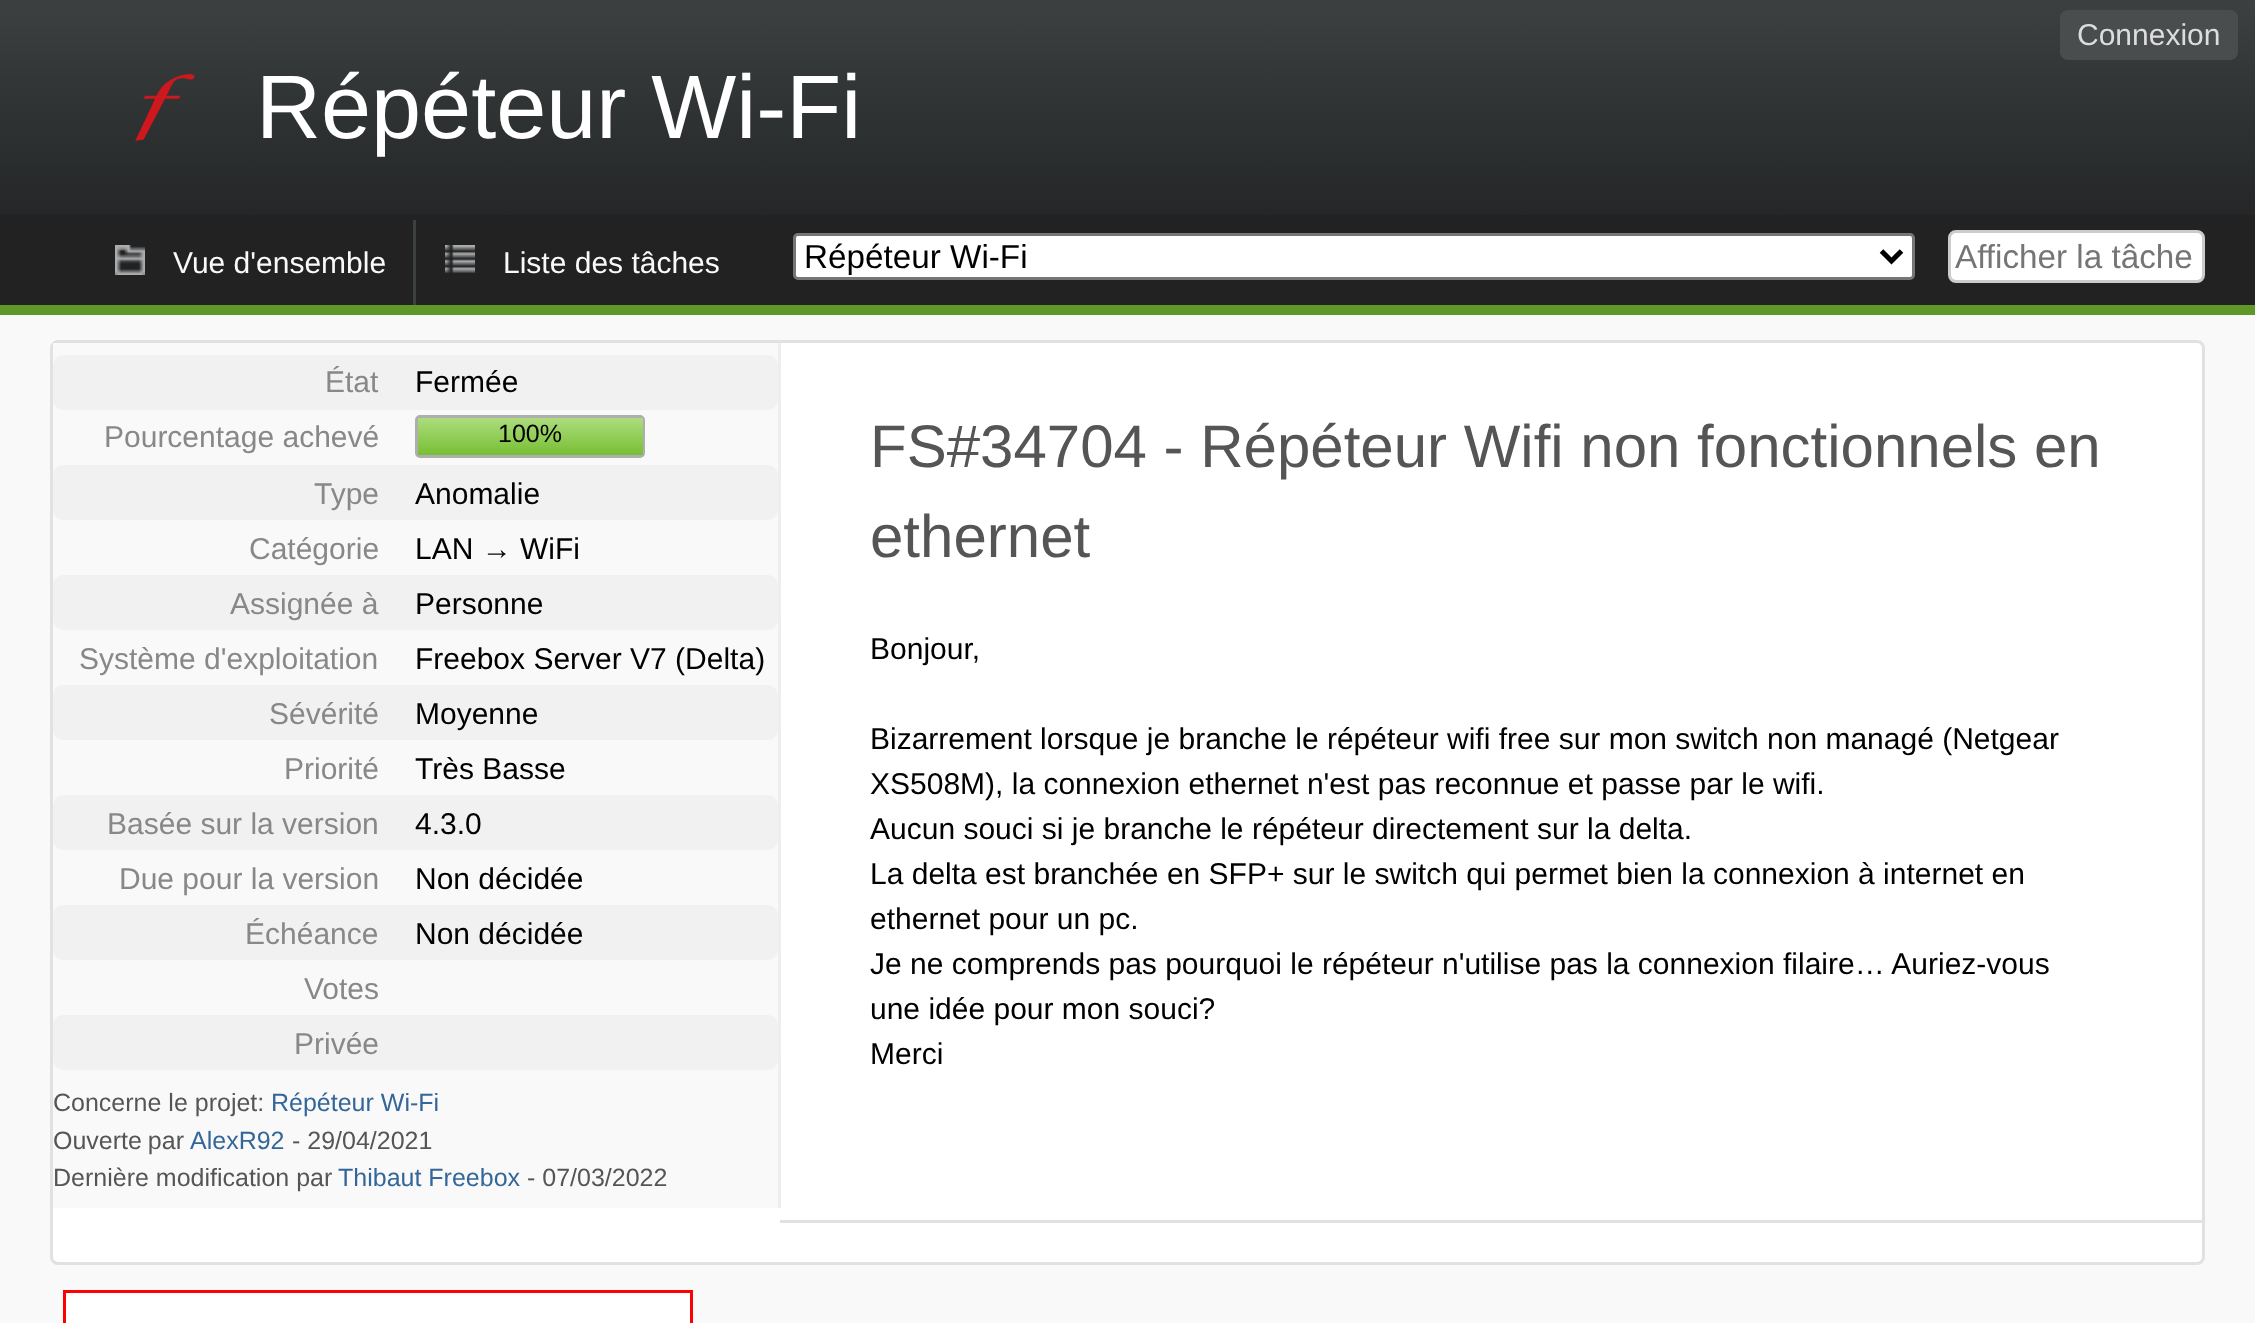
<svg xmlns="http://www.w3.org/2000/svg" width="2255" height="1323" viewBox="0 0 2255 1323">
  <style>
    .t1 { font: 30px Liberation Sans; fill: #ddd; }
    .t2 { font: 90px Liberation Sans; fill: #fff; }
    .t3 { font: 30px Liberation Sans; fill: #f9f9f9; }
    .t4 { font: 33.25px Liberation Sans; fill: #000; }
    .t5 { font: 33.25px Liberation Sans; fill: #757575; }
    .t6 { font: 30px Liberation Sans; fill: #888; }
    .t7 { font: 30px Liberation Sans; fill: #000; }
    .t8 { font: 25px Liberation Sans; fill: #000; }
    .t9 { font: 25px Liberation Sans; fill: #555; }
    .t10 { font: 25px Liberation Sans; fill: #369; }
    .t11 { font: 60px Liberation Sans; fill: #555; }
  </style>
  <defs>
    <linearGradient id="g1" gradientUnits="userSpaceOnUse" x1="1128" y1="0" x2="1128" y2="215"><stop offset="0" stop-color="#3c4041"/><stop offset="1" stop-color="#242627"/></linearGradient>
    <linearGradient id="g2" gradientUnits="userSpaceOnUse" x1="530" y1="418" x2="530" y2="455"><stop offset="0" stop-color="#acdc7d"/><stop offset="1" stop-color="#78bf34"/></linearGradient>
  </defs>
  <rect width="100%" height="100%" fill="#f9f9f9"/>
  <rect x="0" y="0" width="2255" height="215" fill="url(#g1)"/>
  <rect x="2060" y="10" width="178" height="50" rx="8" fill="#494d4e"/>
  <text x="2077" y="45" class="t1">Connexion</text>
  <image x="135" y="74" width="60" height="67" href="images/1.png"/>
  <text x="256" y="138" class="t2">Répéteur Wi-Fi</text>
  <rect x="0" y="215" width="2255" height="90" fill="#222"/>
  <rect x="0" y="305" width="2255" height="10" fill="#5f9729"/>
  <image x="115" y="245" width="30" height="30" href="images/2.png"/>
  <text x="173" y="273" class="t3">Vue d'ensemble</text>
  <image x="445" y="245" width="30" height="28" href="images/3.png"/>
  <rect x="413" y="220" width="3" height="85" fill="#3c4041"/>
  <text x="503" y="273" class="t3">Liste des tâches</text>
  <rect x="794.5" y="234.5" width="1119" height="44" rx="3.5" fill="#fff" stroke="#767676" stroke-width="3"/>
  <path d="M1881.5 251L1891.5 261L1901.5 251" fill="none" stroke="#000" stroke-width="5"/>
  <text x="804" y="268" class="t4">Répéteur Wi-Fi</text>
  <rect x="1949.5" y="231.5" width="254" height="50" rx="6.5" fill="#fff" stroke="#ccc" stroke-width="3"/>
  <text x="1955" y="268" class="t5">Afficher la tâche</text>
  <rect x="51.5" y="341.5" width="2152" height="922" rx="6.5" fill="#fff" stroke="#e1e1e1" stroke-width="3"/>
  <rect x="53" y="343" width="725" height="865" fill="#f9f9f9"/>
  <rect x="778" y="343" width="3" height="865" fill="#eee"/>
  <rect x="53" y="355" width="725" height="55" rx="10" fill="#f1f1f1"/>
  <text x="325" y="392" class="t6">État</text>
  <text x="415" y="392" class="t7">Fermée</text>
  <text x="104" y="447" class="t6">Pourcentage achevé</text>
  <rect x="416.5" y="416.5" width="227" height="40" rx="3.5" fill="none" stroke="#aeaeae" stroke-width="3"/>
  <rect x="418" y="418" width="225" height="37" fill="url(#g2)"/>
  <text x="498" y="442" class="t8">100%</text>
  <rect x="53" y="465" width="725" height="55" rx="10" fill="#f1f1f1"/>
  <text x="314" y="504" class="t6">Type</text>
  <text x="415" y="504" class="t7">Anomalie</text>
  <text x="249" y="559" class="t6">Catégorie</text>
  <text x="415" y="559" class="t7">LAN → WiFi</text>
  <rect x="53" y="575" width="725" height="55" rx="10" fill="#f1f1f1"/>
  <text x="230" y="614" class="t6">Assignée à</text>
  <text x="415" y="614" class="t7">Personne</text>
  <text x="79" y="669" class="t6">Système d'exploitation</text>
  <text x="415" y="669" class="t7">Freebox Server V7 (Delta)</text>
  <rect x="53" y="685" width="725" height="55" rx="10" fill="#f1f1f1"/>
  <text x="269" y="724" class="t6">Sévérité</text>
  <text x="415" y="724" class="t7">Moyenne</text>
  <text x="284" y="779" class="t6">Priorité</text>
  <text x="415" y="779" class="t7">Très Basse</text>
  <rect x="53" y="795" width="725" height="55" rx="10" fill="#f1f1f1"/>
  <text x="107" y="834" class="t6">Basée sur la version</text>
  <text x="415" y="834" class="t7">4.3.0</text>
  <text x="119" y="889" class="t6">Due pour la version</text>
  <text x="415" y="889" class="t7">Non décidée</text>
  <rect x="53" y="905" width="725" height="55" rx="10" fill="#f1f1f1"/>
  <text x="245" y="944" class="t6">Échéance</text>
  <text x="415" y="944" class="t7">Non décidée</text>
  <text x="304" y="999" class="t6">Votes</text>
  <rect x="53" y="1015" width="725" height="55" rx="10" fill="#f1f1f1"/>
  <text x="294" y="1054" class="t6">Privée</text>
  <text x="53" y="1111" class="t9">Concerne le projet:</text>
  <text x="271" y="1111" class="t10">Répéteur Wi-Fi</text>
  <text x="53" y="1149" word-spacing="-1" class="t9">Ouverte par</text>
  <text x="190" y="1149" class="t10">AlexR92</text>
  <text x="292" y="1149" class="t9">- 29/04/2021</text>
  <text x="53" y="1186" class="t9">Dernière modification par</text>
  <text x="338" y="1186" class="t10">Thibaut Freebox</text>
  <text x="527" y="1186" class="t9">- 07/03/2022</text>
  <text x="870" y="467" class="t11">FS#34704 - Répéteur Wifi non fonctionnels en</text>
  <text x="870" y="557" class="t11">ethernet</text>
  <text x="870" y="659" class="t7">Bonjour,</text>
  <text x="870" y="749" class="t7">Bizarrement lorsque je branche le répéteur wifi free sur mon switch non managé (Netgear</text>
  <text x="870" y="794" class="t7">XS508M), la connexion ethernet n'est pas reconnue et passe par le wifi.</text>
  <text x="870" y="839" class="t7">Aucun souci si je branche le répéteur directement sur la delta.</text>
  <text x="870" y="884" class="t7">La delta est branchée en SFP+ sur le switch qui permet bien la connexion à internet en</text>
  <text x="870" y="929" class="t7">ethernet pour un pc.</text>
  <text x="870" y="974" class="t7">Je ne comprends pas pourquoi le répéteur n'utilise pas la connexion filaire… Auriez-vous</text>
  <text x="870" y="1019" class="t7">une idée pour mon souci?</text>
  <text x="870" y="1064" class="t7">Merci</text>
  <rect x="780" y="1220" width="1423" height="3" fill="#e1e1e1"/>
  <rect x="64.5" y="1291.5" width="627" height="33" fill="#fff" stroke="#f00" stroke-width="3"/>
</svg>
